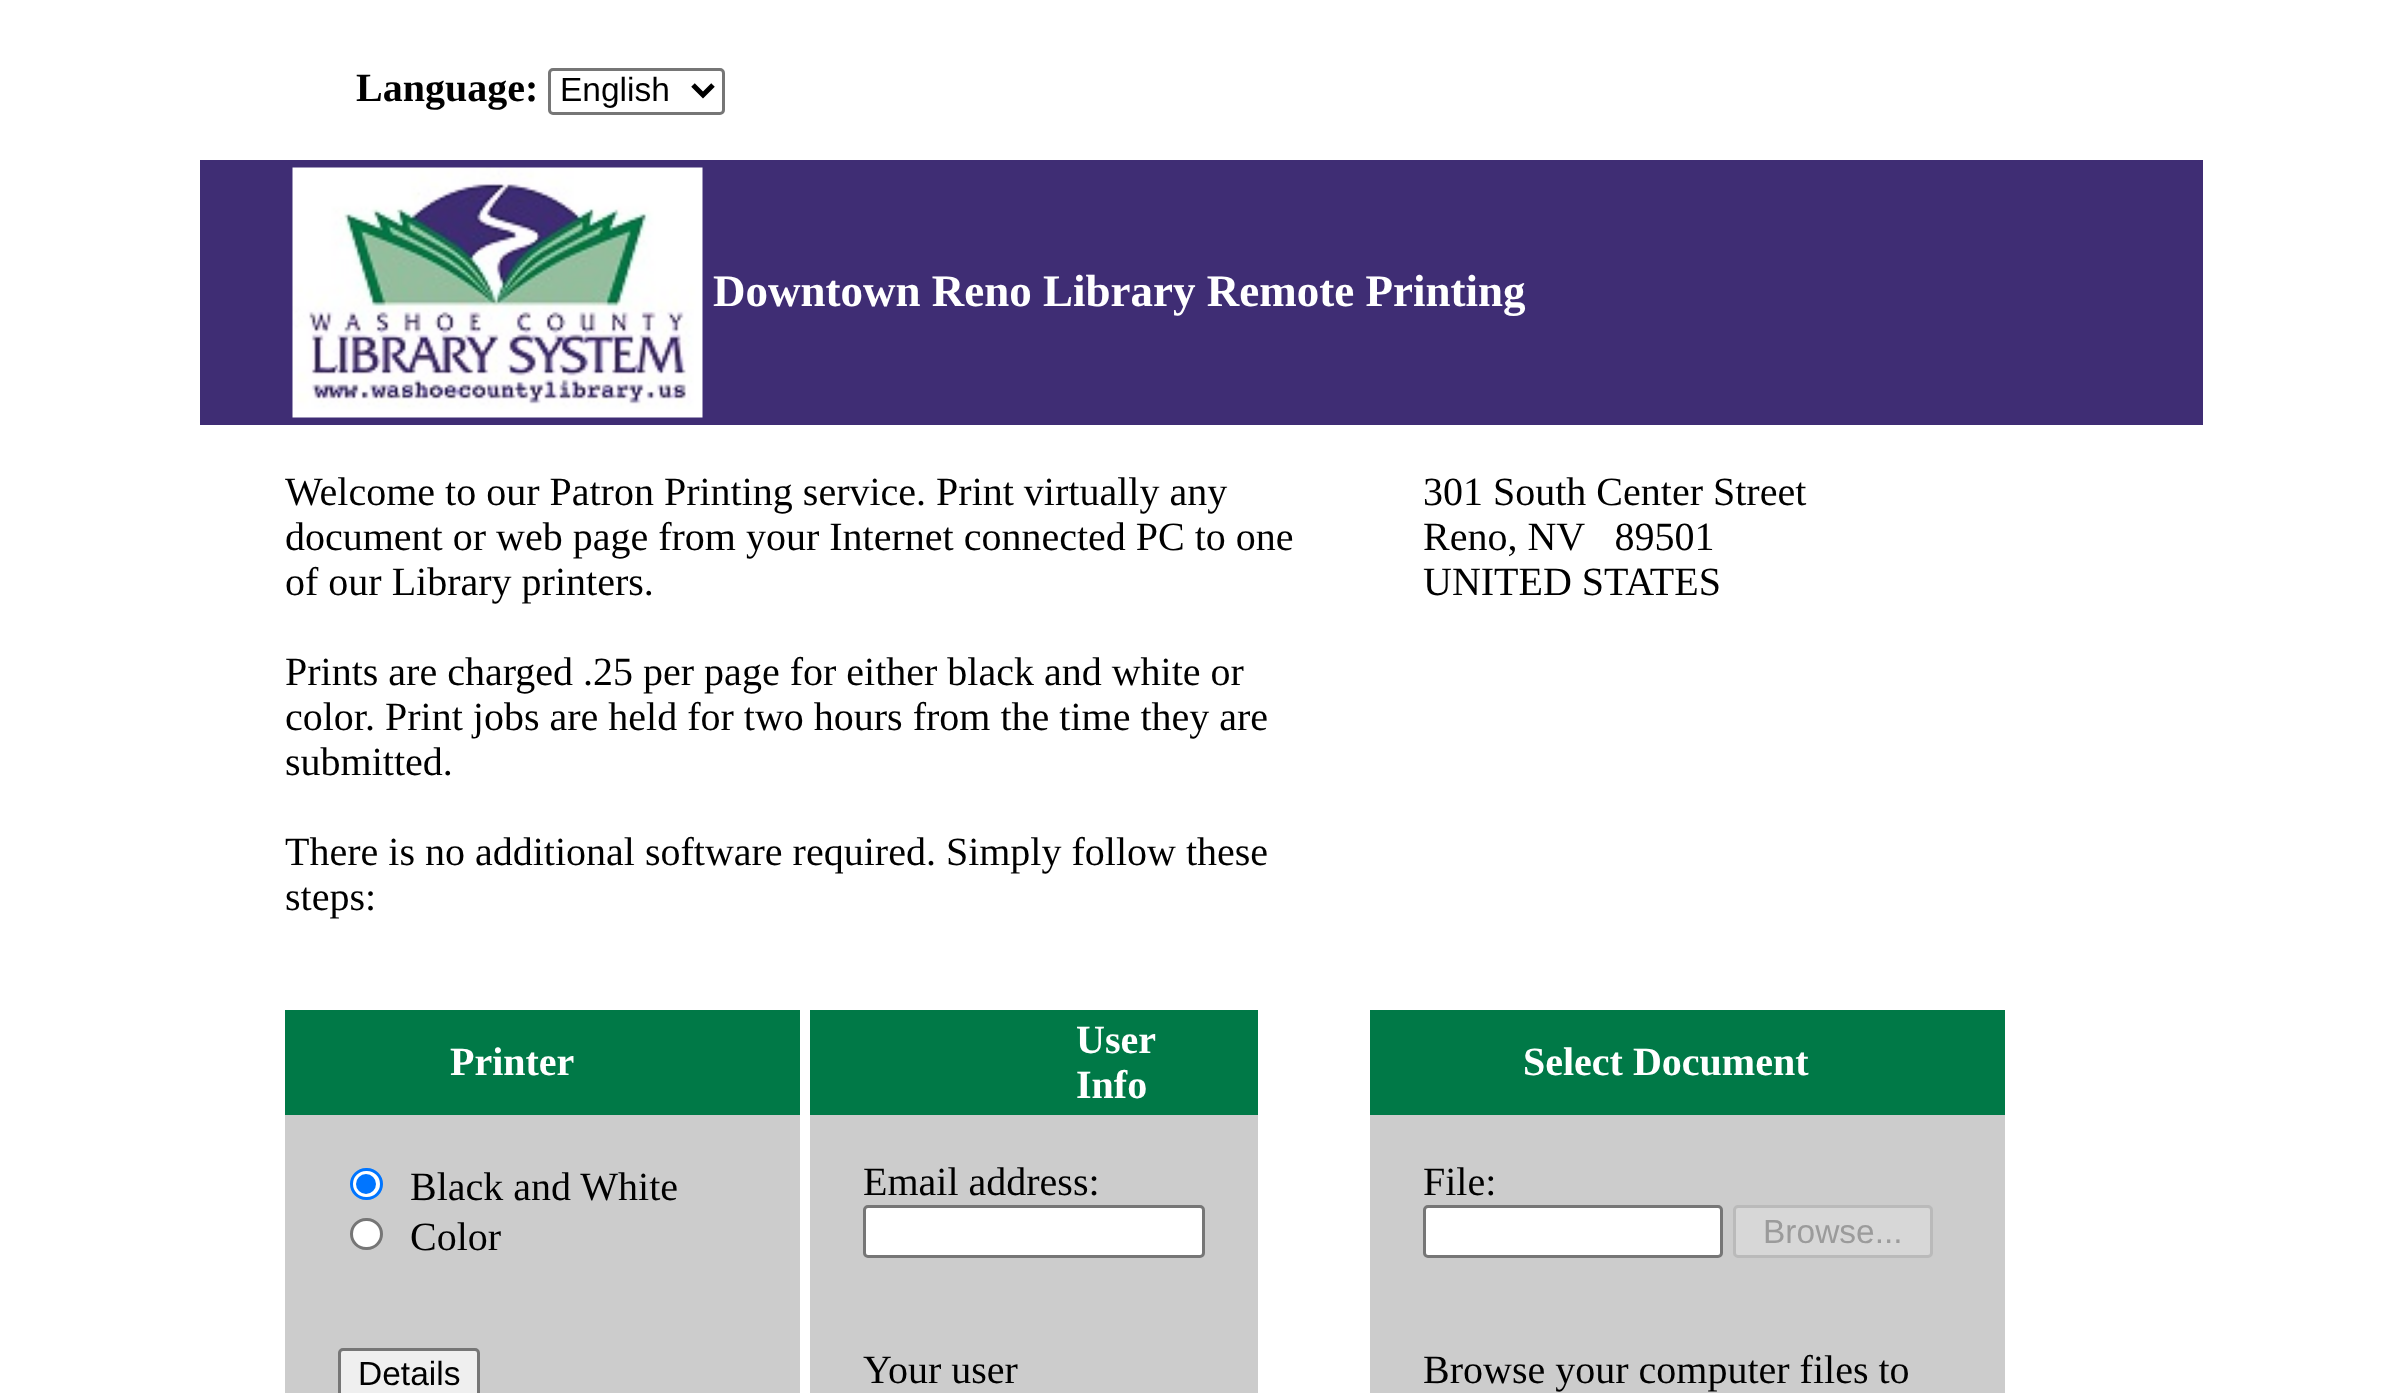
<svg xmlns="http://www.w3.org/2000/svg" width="2402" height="1393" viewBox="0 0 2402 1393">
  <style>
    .t1 { font: bold 40px Liberation Serif; fill: #000; }
    .t2 { font: 33.5px Liberation Sans; fill: #000; }
    .t3 { font: bold 45px Liberation Serif; fill: #fff; }
    .t4 { font: 40px Liberation Serif; fill: #000; }
    .t5 { font: bold 40px Liberation Serif; fill: #fff; }
    .t6 { font: 33.5px Liberation Sans; fill: #9b9b9b; }
  </style>
  <rect width="100%" height="100%" fill="#fff"/>
  <text x="356" y="101" class="t1">Language:</text>
  <rect x="549.5" y="69.5" width="174" height="44" rx="3.5" fill="none" stroke="#767676" stroke-width="3"/>
  <path d="M693 85L703 95L713 85" fill="none" stroke="#000" stroke-width="5"/>
  <text x="560" y="101" class="t2">English</text>
  <rect x="200" y="160" width="2003" height="265" fill="#3f2d74"/>
  <image x="292" y="167" width="411" height="251" href="images/1.png"/>
  <text x="713" y="306" class="t3">Downtown Reno Library Remote Printing</text>
  <text x="285" y="505" class="t4">Welcome to our Patron Printing service. Print virtually any</text>
  <text x="285" y="550" class="t4">document or web page from your Internet connected PC to one</text>
  <text x="285" y="595" class="t4">of our Library printers.</text>
  <text x="285" y="685" class="t4">Prints are charged .25 per page for either black and white or</text>
  <text x="285" y="730" class="t4">color. Print jobs are held for two hours from the time they are</text>
  <text x="285" y="775" class="t4">submitted.</text>
  <text x="285" y="865" class="t4">There is no additional software required. Simply follow these</text>
  <text x="285" y="910" class="t4">steps:</text>
  <text x="1423" y="505" class="t4">301 South Center Street</text>
  <text x="1423" y="550" class="t4" xml:space="preserve">Reno, NV   89501</text>
  <text x="1423" y="595" class="t4">UNITED STATES</text>
  <rect x="285" y="1010" width="515" height="105" fill="#007947"/>
  <rect x="810" y="1010" width="448" height="105" fill="#007947"/>
  <rect x="1370" y="1010" width="635" height="105" fill="#007947"/>
  <text x="450" y="1075" class="t5">Printer</text>
  <text x="1076" y="1053" class="t5">User</text>
  <text x="1076" y="1098" class="t5">Info</text>
  <text x="1523" y="1075" class="t5">Select Document</text>
  <rect x="285" y="1115" width="515" height="45" fill="#ccc"/>
  <rect x="810" y="1115" width="448" height="45" fill="#ccc"/>
  <rect x="1370" y="1115" width="635" height="45" fill="#ccc"/>
  <rect x="285" y="1160" width="515" height="143" fill="#ccc"/>
  <rect x="810" y="1160" width="448" height="143" fill="#ccc"/>
  <rect x="1370" y="1160" width="635" height="143" fill="#ccc"/>
  <rect x="351.5" y="1169.5" width="30" height="29" rx="14.5" fill="#fff" stroke="#0075ff" stroke-width="3"/>
  <circle cx="366" cy="1184" r="10" fill="#0075ff"/>
  <text x="410" y="1200" class="t4">Black and White</text>
  <rect x="351.5" y="1219.5" width="30" height="29" rx="14.5" fill="#fff" stroke="#767676" stroke-width="3"/>
  <text x="410" y="1250" class="t4">Color</text>
  <text x="863" y="1195" class="t4">Email address:</text>
  <rect x="864.5" y="1206.5" width="339" height="50" rx="3.5" fill="#fff" stroke="#767676" stroke-width="3"/>
  <text x="1423" y="1195" class="t4">File:</text>
  <rect x="1424.5" y="1206.5" width="297" height="50" rx="3.5" fill="#fff" stroke="#767676" stroke-width="3"/>
  <rect x="1733" y="1205" width="200" height="53" rx="5" fill="#d7d7d7"/>
  <rect x="1734.5" y="1206.5" width="197" height="50" rx="3.5" fill="none" stroke="#7676764d" stroke-width="3"/>
  <text x="1763" y="1243" class="t6">Browse...</text>
  <rect x="285" y="1303" width="515" height="90" fill="#ccc"/>
  <rect x="810" y="1303" width="448" height="90" fill="#ccc"/>
  <rect x="1370" y="1303" width="635" height="90" fill="#ccc"/>
  <rect x="339.5" y="1349.5" width="139" height="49" rx="3.5" fill="#efefef" stroke="#767676" stroke-width="3"/>
  <text x="358" y="1385" class="t2">Details</text>
  <text x="863" y="1383" class="t4">Your user</text>
  <text x="1423" y="1383" class="t4">Browse your computer files to</text>
</svg>
